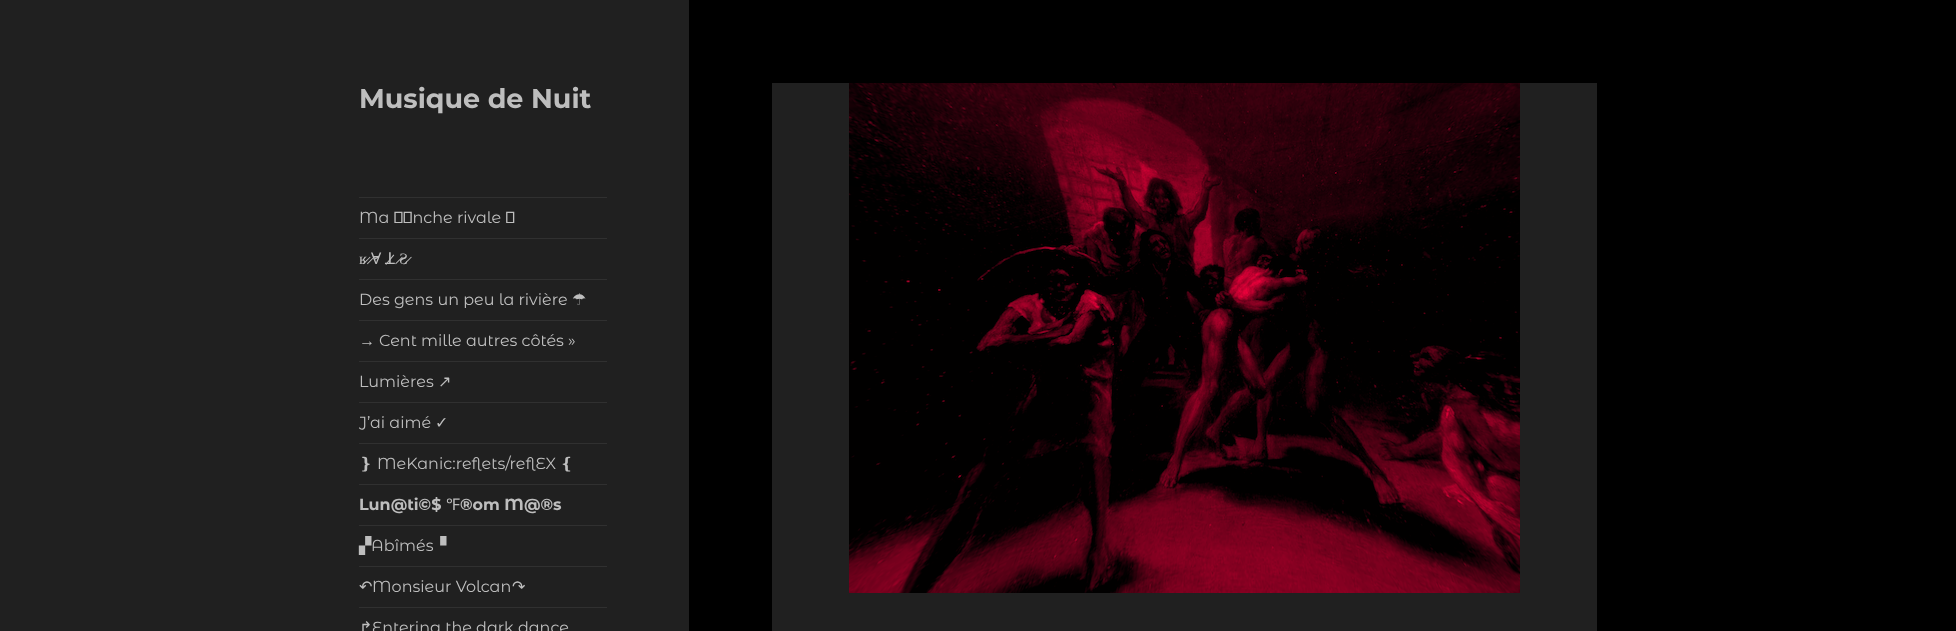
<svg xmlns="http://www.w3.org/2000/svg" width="1956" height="631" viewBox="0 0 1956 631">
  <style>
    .t1 { font: bold 27px Montserrat; fill: #bebebe; }
    .t2 { font: 16px Montserrat Alternates; fill: #bebebe; }
    .t3 { font: 16px Liberation Serif; fill: #bebebe; }
    .t4 { font: 16px Noto Sans; fill: #bebebe; }
    .t5 { font: 16px DejaVu Sans; fill: #bebebe; }
    .t6 { font: bold 16px Montserrat Alternates; fill: #bebebe; }
  </style>
  <rect width="100%" height="100%" fill="#000"/>
  <rect x="0" y="0" width="689" height="631" fill="#202020"/>
  <text x="359" y="108" class="t1">Musique de Nuit</text>
  <rect x="359" y="197" width="248" height="1" fill="#303030"/>
  <text x="359" y="223" class="t2">Ma ⃝⃞nche rivale ⃝</text>
  <rect x="359" y="238" width="248" height="1" fill="#303030"/>
  <text x="359" y="264" class="t3">ʁ̷ ̷</text>
  <text x="371" y="264" class="t4">Ɐ̷</text>
  <text x="385" y="264" class="t5">ꓕ̷</text>
  <text x="399" y="264" class="t3">̷Ƨ̷</text>
  <rect x="359" y="279" width="248" height="1" fill="#303030"/>
  <text x="359" y="305" class="t2">Des gens un peu la rivière</text>
  <text x="572" y="305" class="t5">☂</text>
  <rect x="359" y="320" width="248" height="1" fill="#303030"/>
  <text x="359" y="346" class="t3">→</text>
  <text x="379" y="346" class="t2">Cent mille autres côtés »</text>
  <rect x="359" y="361" width="248" height="1" fill="#303030"/>
  <text x="359" y="387" class="t2">Lumières</text>
  <text x="438" y="387" class="t5">↗</text>
  <rect x="359" y="402" width="248" height="1" fill="#303030"/>
  <text x="359" y="428" class="t2">J’ai aimé</text>
  <text x="435" y="428" class="t5">✓</text>
  <rect x="359" y="443" width="248" height="1" fill="#303030"/>
  <text x="359" y="469" class="t5">❵</text>
  <text x="377" y="469" class="t2">MeKanic:reflets/reflEX</text>
  <text x="560" y="469" class="t5">❴</text>
  <rect x="359" y="484" width="248" height="1" fill="#303030"/>
  <text x="359" y="510" class="t6">Lun@ti©$</text>
  <text x="446" y="510" class="t4">℉</text>
  <text x="460" y="510" class="t6">®om M@®s</text>
  <rect x="359" y="525" width="248" height="1" fill="#303030"/>
  <text x="359" y="551" class="t5">▞</text>
  <text x="371" y="551" class="t2">Abîmés</text>
  <text x="434" y="551" class="t5">▝</text>
  <rect x="359" y="566" width="248" height="1" fill="#303030"/>
  <text x="359" y="592" class="t5">↶</text>
  <text x="372" y="592" class="t2">Monsieur Volcan</text>
  <text x="512" y="592" class="t5">↷</text>
  <rect x="359" y="607" width="248" height="1" fill="#303030"/>
  <text x="359" y="633" class="t5">↱</text>
  <text x="372" y="633" class="t2">Entering the dark dance</text>
  <rect x="772" y="83" width="825" height="548" fill="#202020"/>
  <image x="849" y="83" width="671" height="510" href="images/1.png"/>
</svg>
